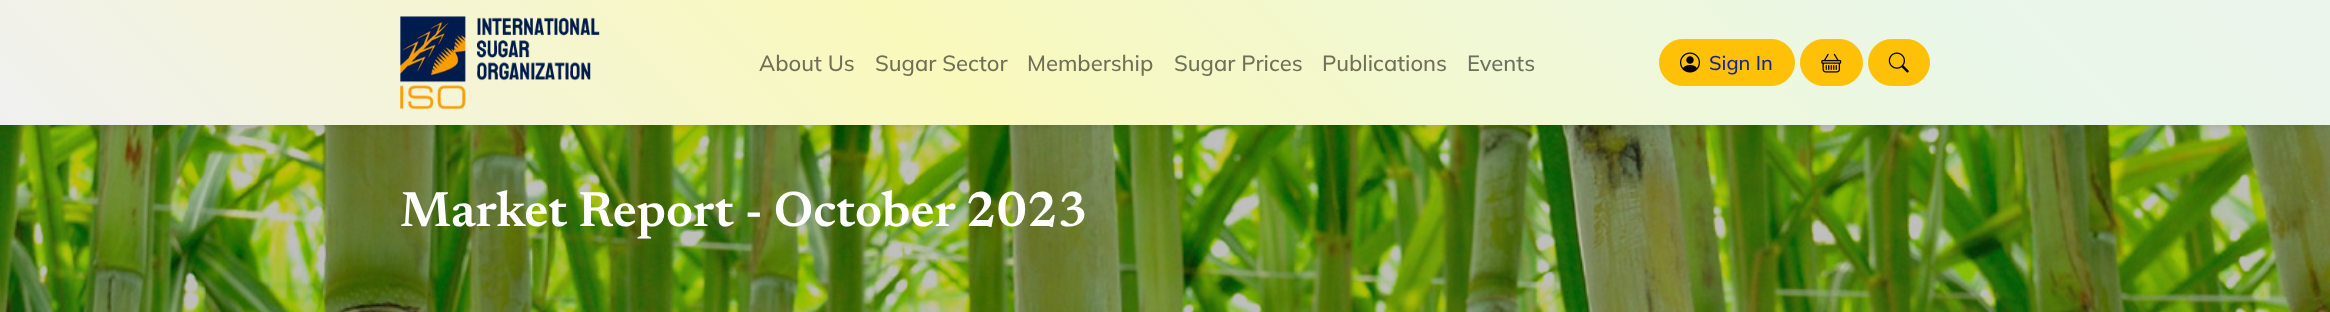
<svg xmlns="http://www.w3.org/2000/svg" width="2330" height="312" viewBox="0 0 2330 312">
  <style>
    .t1 { font: 500 22px Mulish; fill: #707058; }
    .t2 { font: 500 22px Mulish; fill: #6c705f; }
    .t3 { font: 500 20px Mulish; fill: #1a2295; }
    .t4 { font: 600 50px Newsreader; fill: #fff; }
  </style>
  <defs>
    <linearGradient id="g1" gradientUnits="userSpaceOnUse" x1="1716" y1="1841" x2="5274" y2="-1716"><stop offset="0" stop-color="#f0f0f0"/><stop offset="0.14" stop-color="#f9f9bc"/><stop offset="0.29" stop-color="#e9f7e9"/><stop offset="0.43" stop-color="#f0f0f0"/><stop offset="0.57" stop-color="#f9f9bc"/><stop offset="0.71" stop-color="#e9f7e9"/><stop offset="0.86" stop-color="#f0f0f0"/><stop offset="1" stop-color="#f9f9bc"/></linearGradient>
  </defs>
  <rect width="100%" height="100%" fill="#fff"/>
  <image x="0" y="125" width="2330" height="187" href="images/5.png"/>
  <rect x="0" y="3" width="2330" height="125" fill="#00000012" filter="blur(2.5px)"/>
  <rect x="0" y="0" width="2330" height="125" fill="url(#g1)"/>
  <image x="400" y="16" width="200" height="93" href="images/1.png"/>
  <text x="759" y="71" class="t1">About Us</text>
  <text x="875" y="71" class="t1">Sugar Sector</text>
  <text x="1027" y="71" class="t1">Membership</text>
  <text x="1174" y="71" class="t1">Sugar Prices</text>
  <text x="1322" y="71" class="t1">Publications</text>
  <text x="1467" y="71" class="t2">Events</text>
  <rect x="1659.5" y="39.5" width="135" height="46" rx="23" fill="#ffc107" stroke="#ffc107"/>
  <image x="1680" y="52" width="20" height="21" href="images/2.png"/>
  <text x="1709" y="70" class="t3">Sign In</text>
  <rect x="1800.5" y="39.5" width="62" height="46" rx="23" fill="#ffc107" stroke="#ffc107"/>
  <image x="1821" y="53" width="21" height="20" href="images/3.png"/>
  <rect x="1868.5" y="39.5" width="61" height="46" rx="23" fill="#ffc107" stroke="#ffc107"/>
  <image x="1888" y="52" width="21" height="21" href="images/4.png"/>
  <text x="400" y="226" class="t4">Market Report - October 2023</text>
</svg>
